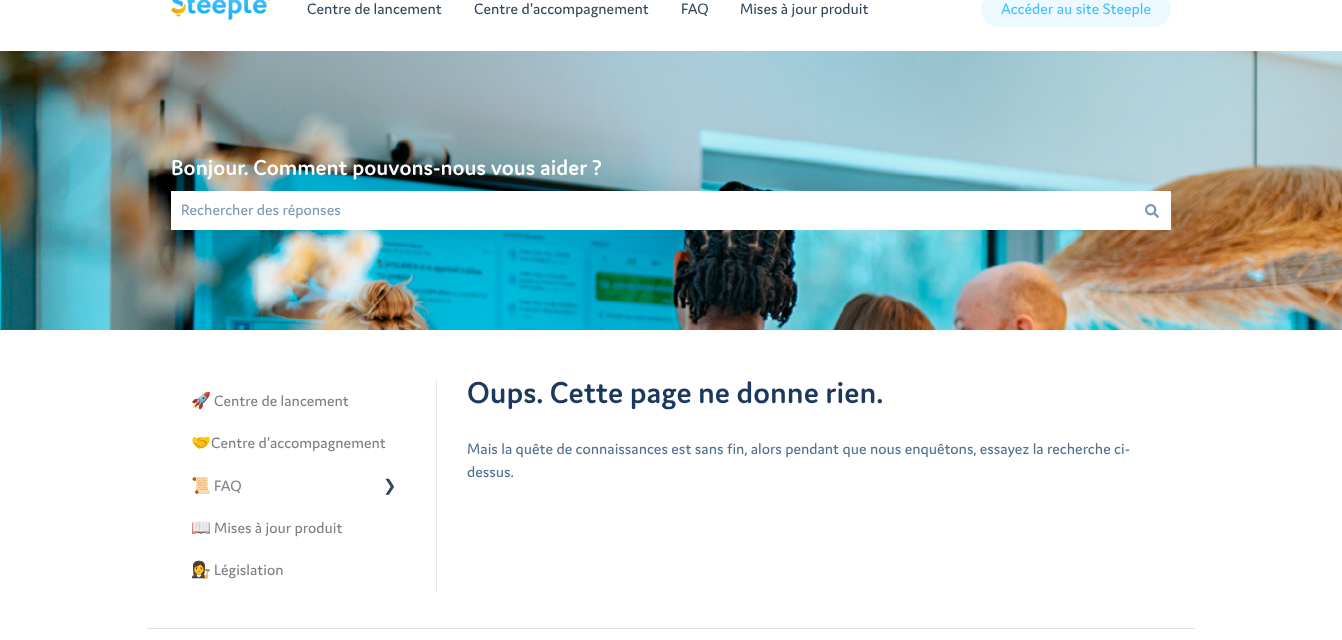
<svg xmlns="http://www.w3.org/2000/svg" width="1342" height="640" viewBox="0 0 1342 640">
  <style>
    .t1 { font: 16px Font; fill: #33475b; }
    .t2 { font: 16px Font; fill: #44c0ff; }
    .t3 { font: 600 23px Font; fill: #fff; }
    .t4 { font: 16px Font; fill: #7c98b6; }
    .t5 { font: 16px Noto Color Emoji; fill: #7f7f7f; }
    .t6 { font: 16px Font; fill: #7f7f7f; }
    .t7 { font: 16px DejaVu Sans; fill: #33475b; }
    .t8 { font: 600 32px Font; fill: #1b385e; }
    .t9 { font: 16px Font; fill: #516f90; }
  </style>
  <rect width="100%" height="100%" fill="#fff"/>
  <image x="171" y="0" width="96" height="20" href="images/1.png"/>
  <text x="307" y="14" class="t1">Centre de lancement</text>
  <text x="474" y="14" class="t1">Centre d'accompagnement</text>
  <text x="681" y="14" class="t1">FAQ</text>
  <text x="740" y="14" class="t1">Mises à jour produit</text>
  <rect x="981" y="-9" width="190" height="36" rx="18" fill="#ecf9ff"/>
  <text x="1001" y="14" class="t2">Accéder au site Steeple</text>
  <image x="0" y="51" width="1342" height="279" href="images/2.png"/>
  <text x="171" y="175" class="t3">Bonjour. Comment pouvons-nous vous aider ?</text>
  <rect x="171" y="192" width="962" height="39" fill="#00000014" filter="blur(12px)"/>
  <rect x="171" y="191" width="1000" height="39" fill="#fff"/>
  <text x="181" y="215" class="t4">Rechercher des réponses</text>
  <image x="1145" y="204" width="14" height="14" href="images/3.png"/>
  <rect x="436" y="380" width="1" height="212" fill="#e2ebf4"/>
  <text x="191" y="406" class="t5">🚀</text>
  <text x="214" y="406" class="t6">Centre de lancement</text>
  <text x="191" y="448" class="t5">🤝</text>
  <text x="211" y="448" class="t6">Centre d'accompagnement</text>
  <text x="191" y="491" class="t5">📜</text>
  <text x="214" y="491" class="t6">FAQ</text>
  <text x="383" y="491" class="t7">❯</text>
  <text x="191" y="533" class="t5">📖</text>
  <text x="214" y="533" class="t6">Mises à jour produit</text>
  <text x="191" y="575" class="t5">👩‍⚖️</text>
  <text x="214" y="575" class="t6">Législation</text>
  <text x="467" y="403" class="t8">Oups. Cette page ne donne rien.</text>
  <text x="467" y="454" class="t9">Mais la quête de connaissances est sans fin, alors pendant que nous enquêtons, essayez la recherche ci-</text>
  <text x="467" y="477" class="t9">dessus.</text>
  <rect x="147" y="628" width="1048" height="1" fill="#e0e0e0"/>
</svg>
